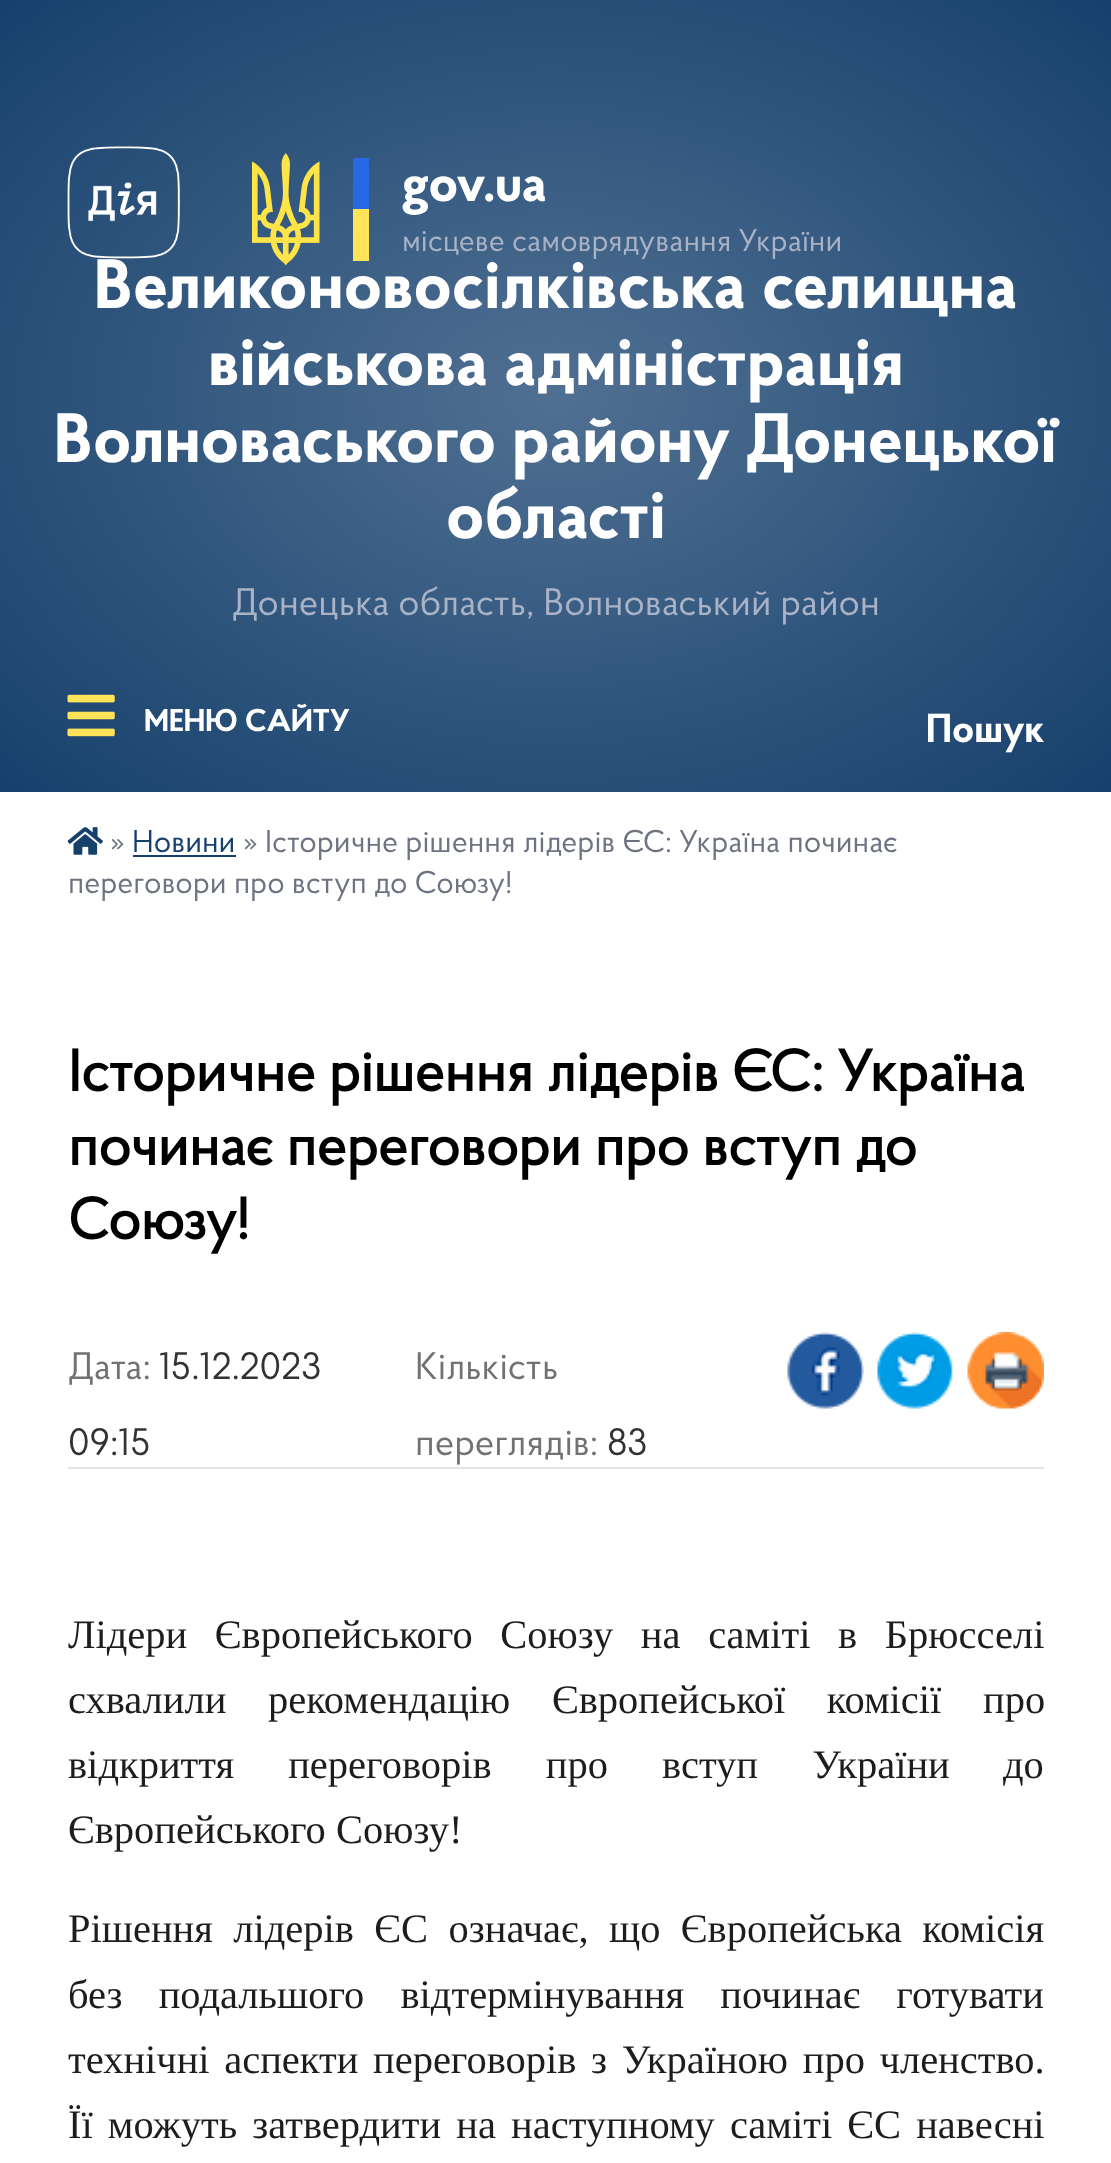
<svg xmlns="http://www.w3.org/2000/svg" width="1111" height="2163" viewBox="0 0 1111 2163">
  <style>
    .t1 { font: bold 69.75px 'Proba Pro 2'; fill: #fff; }
    .t2 { font: bold 54px 'Proba Pro 2'; fill: #fff; }
    .t3 { font: 31.5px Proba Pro; fill: #aab3c6; }
    .t4 { font: 38.25px Proba Pro; fill: #aab3c6; }
    .t5 { font: bold 31.5px 'Proba Pro 2'; fill: #fff; }
    .t6 { font: bold 40.5px 'Proba Pro 2'; fill: #fff; }
    .t7 { font: 31.5px Proba Pro; fill: #6d7381; }
    .t8 { font: 31.5px Proba Pro; fill: #16406c; }
    .t9 { font: bold 58.5px Proba Pro; fill: #000; }
    .t10 { font: 38.25px Proba Pro; fill: #727272; }
    .t11 { font: 38.25px Proba Pro; fill: #333; }
    .t12 { font: 40.5px Liberation Serif; fill: #1d1d1b; }
  </style>
  <defs>
    <radialGradient id="g1" gradientUnits="userSpaceOnUse" cx="0" cy="0" r="1" gradientTransform="matrix(786 0 0 560 556 396)"><stop offset="0" stop-color="#507092"/><stop offset="1" stop-color="#16406c"/></radialGradient>
  </defs>
  <rect width="100%" height="100%" fill="#fff"/>
  <rect x="0" y="0" width="1111" height="792" fill="url(#g1)"/>
  <image x="67" y="146" width="113" height="113" href="images/1.png"/>
  <text x="94" y="308" class="t1">Великоновосілківська селищна</text>
  <image x="252" y="153" width="68" height="113" href="images/2.png"/>
  <rect x="353" y="158" width="16" height="51" fill="#2669e3"/>
  <rect x="353" y="209" width="16" height="52" fill="#ffe358"/>
  <text x="402" y="201" class="t2">gov.ua</text>
  <text x="402" y="251" class="t3">місцеве самоврядування України</text>
  <text x="208" y="385" class="t1">військова адміністрація</text>
  <text x="54" y="462" class="t1">Волноваського району Донецької</text>
  <text x="446" y="538" class="t1">області</text>
  <text x="232" y="615" class="t4">Донецька область, Волноваський район</text>
  <image x="67" y="694" width="48" height="43" href="images/3.png"/>
  <text x="144" y="731" class="t5">МЕНЮ САЙТУ</text>
  <text x="926" y="742" class="t6">Пошук</text>
  <image x="67" y="827" width="36" height="28" href="images/4.png"/>
  <text x="110" y="852" class="t7">»</text>
  <text x="132" y="852" class="t8">Новини</text>
  <rect x="133" y="855" width="103" height="2" fill="#16406c"/>
  <text x="243" y="852" class="t7">» Історичне рішення лідерів ЄС: Україна починає</text>
  <text x="68" y="893" class="t7">переговори про вступ до Союзу!</text>
  <text x="68" y="1091" class="t9">Історичне рішення лідерів ЄС: Україна</text>
  <text x="68" y="1165" class="t9">починає переговори про вступ до</text>
  <text x="68" y="1239" class="t9">Союзу!</text>
  <text x="68" y="1379" class="t10">Дата:</text>
  <text x="159" y="1379" class="t11">15.12.2023</text>
  <text x="68" y="1455" class="t11">09:15</text>
  <text x="415" y="1379" class="t10">Кількість</text>
  <text x="415" y="1455" class="t10">переглядів:</text>
  <text x="607" y="1455" class="t11">83</text>
  <image x="787" y="1332" width="77" height="77" href="images/5.png"/>
  <image x="877" y="1332" width="76" height="77" href="images/6.png"/>
  <image x="967" y="1332" width="77" height="77" href="images/7.png"/>
  <rect x="68" y="1467" width="976" height="2" fill="#e5e5e5"/>
  <text x="68" y="1648" word-spacing="17.5" class="t12">Лідери Європейського Союзу на саміті в Брюсселі</text>
  <text x="68" y="1713" word-spacing="31.5" class="t12">схвалили рекомендацію Європейської комісії про</text>
  <text x="68" y="1778" word-spacing="44" class="t12">відкриття переговорів про вступ України</text>
  <text x="1003" y="1778" class="t12">до</text>
  <text x="68" y="1843" class="t12">Європейського Союзу!</text>
  <text x="68" y="1942" word-spacing="10.25" class="t12">Рішення лідерів ЄС означає, що Європейська комісія</text>
  <text x="68" y="2008" word-spacing="26" class="t12">без подальшого відтермінування починає готувати</text>
  <text x="68" y="2073" word-spacing="4.5" class="t12">технічні аспекти переговорів з Україною про членство.</text>
  <text x="68" y="2138" word-spacing="5" class="t12">Її можуть затвердити на наступному саміті ЄС навесні</text>
</svg>
